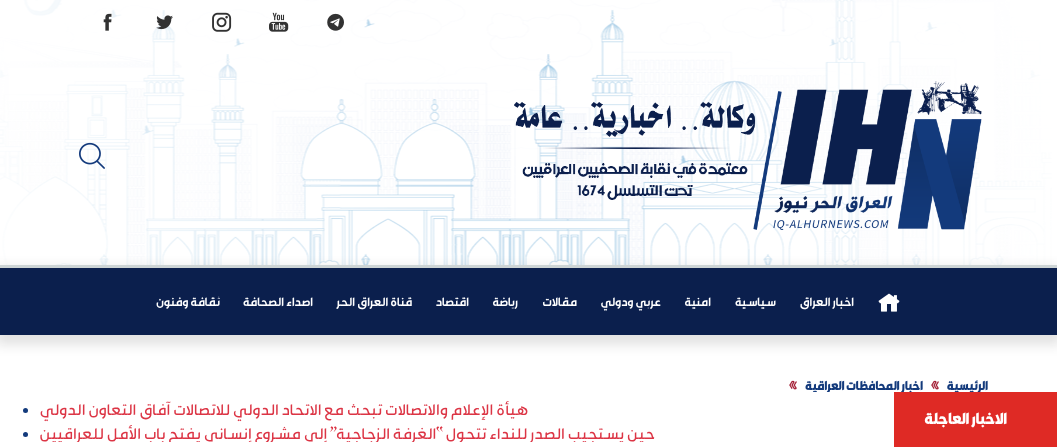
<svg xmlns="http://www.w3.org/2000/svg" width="1057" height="447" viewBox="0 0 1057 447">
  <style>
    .t1 { font: bold 12px 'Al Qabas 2'; direction: rtl; fill: #fff; }
    .t2 { font: bold 12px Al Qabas; direction: rtl; fill: #133a7c; }
    .t3 { font: bold 15px Al Qabas; direction: rtl; fill: #fff; }
    .t4 { font: 16px Al Qabas; direction: rtl; fill: #dc3545; }
  </style>
  <defs>
    <clipPath id="clip1"><rect x="0" y="397" width="1057" height="45"/></clipPath>
  </defs>
  <rect width="100%" height="100%" fill="#fff"/>
  <image x="0" y="0" width="1052" height="265" href="images/1.png"/>
  <image x="327" y="13" width="17" height="18" href="images/2.png"/>
  <image x="269" y="12" width="20" height="20" href="images/3.png"/>
  <image x="212" y="12" width="20" height="20" href="images/4.png"/>
  <image x="156" y="15" width="17" height="15" href="images/5.png"/>
  <image x="103" y="13" width="9" height="18" href="images/6.png"/>
  <image x="514" y="81" width="468" height="149" href="images/7.png"/>
  <image x="79" y="142" width="26" height="27" href="images/8.png"/>
  <rect x="-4" y="267" width="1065" height="78" fill="#1717171f" filter="blur(6px)"/>
  <rect x="0" y="268" width="1057" height="67" fill="#0b1f4d"/>
  <rect x="0" y="265" width="1057" height="3" fill="#cdd4d5"/>
  <image x="878" y="293" width="22" height="19" href="images/9.png"/>
  <text x="854" y="306" class="t1">اخبار العراق</text>
  <text x="776" y="306" class="t1">سياسية</text>
  <text x="711" y="306" class="t1">امنية</text>
  <text x="661" y="306" class="t1">عربي ودولي</text>
  <text x="577" y="306" class="t1">مقالات</text>
  <text x="518" y="306" class="t1">رياضة</text>
  <text x="469" y="306" class="t1">اقتصاد</text>
  <text x="412" y="306" class="t1">قناة العراق الحر</text>
  <text x="313" y="306" class="t1">اصداء الصحافة</text>
  <text x="220" y="306" class="t1">ثقافة وفنون</text>
  <text x="923" y="390" class="t2">اخبار المحافظات العراقية</text>
  <rect x="813" y="392" width="17" height="1" fill="#fff"/>
  <text x="988" y="390" class="t2">الرئيسية</text>
  <rect x="894" y="392" width="163" height="55" fill="#df2a25"/>
  <text x="1007" y="424" class="t3">الاخبار العاجلة</text>
  <text x="528" y="415" class="t4">هيأة الإعلام والاتصالات تبحث مع الاتحاد الدولي للاتصالات آفاق التعاون الدولي</text>
  <circle cx="25.5" cy="410.5" r="2.5" fill="#133a7c"/>
  <g clip-path="url(#clip1)">
    <text x="655" y="439" class="t4">حين يستجيب الصدر للنداء تتحول “الغرفة الزجاجية” إلى مشروع إنساني يفتح باب الأمل للعراقيين</text>
  </g>
  <circle cx="25.5" cy="434.5" r="2.5" fill="#133a7c"/>
  <image x="931" y="380" width="8" height="10" href="images/10.png"/>
  <image x="789" y="380" width="8" height="10" href="images/10.png"/>
</svg>
